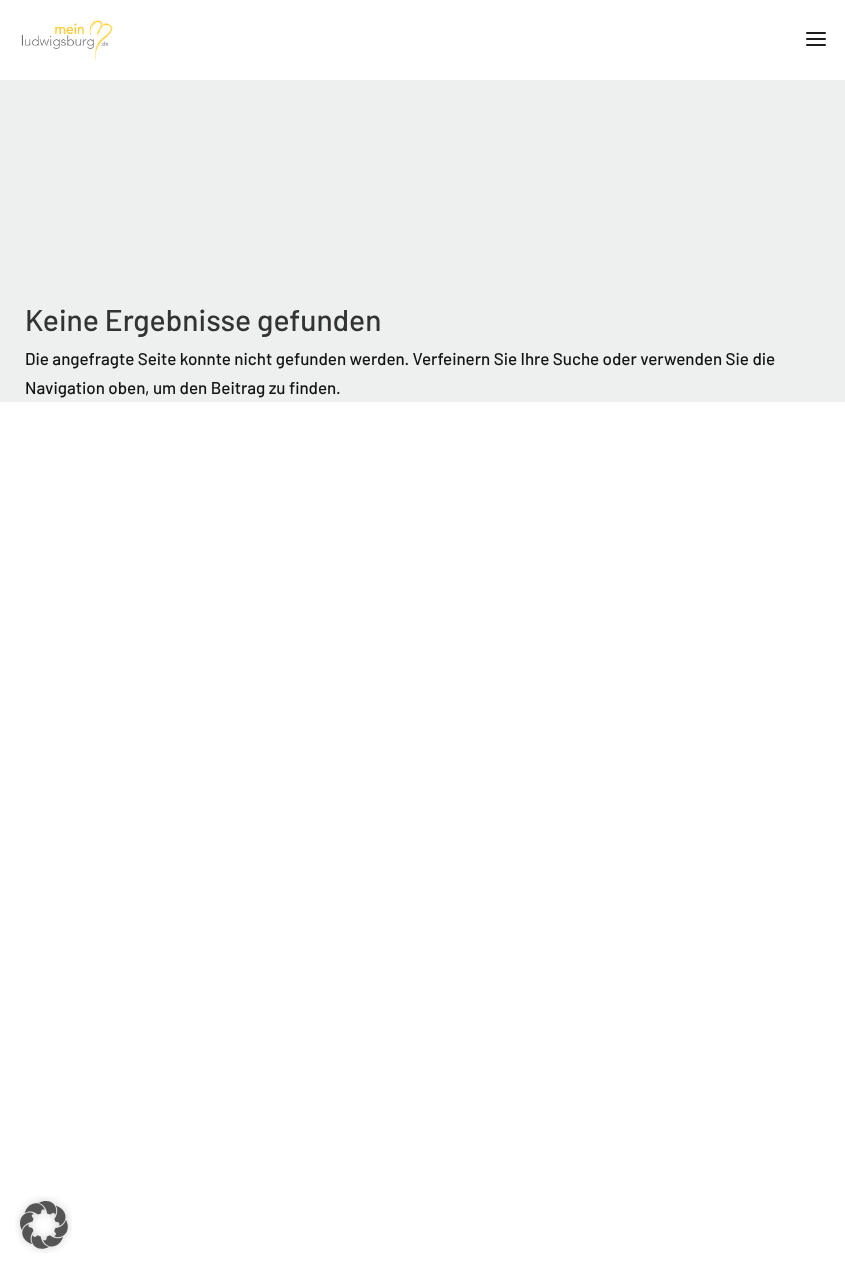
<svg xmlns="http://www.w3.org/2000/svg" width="845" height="1269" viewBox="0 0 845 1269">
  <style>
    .t1 { font: 500 30px Barlow; fill: #333; }
    .t2 { font: 500 17px Barlow; fill: #141414; }
  </style>
  <rect width="100%" height="100%" fill="#fff"/>
  <image x="21" y="20" width="92" height="40" href="images/1.png"/>
  <image x="806" y="32" width="20" height="14" href="images/2.png"/>
  <rect x="0" y="80" width="845" height="322" fill="#edf0ef"/>
  <text x="25" y="331" class="t1">Keine Ergebnisse gefunden</text>
  <text x="25" y="365" class="t2">Die angefragte Seite konnte nicht gefunden werden. Verfeinern Sie Ihre Suche oder verwenden Sie die</text>
  <text x="25" y="394" class="t2">Navigation oben, um den Beitrag zu finden.</text>
  <image x="15" y="1196" width="57" height="57" href="images/3.png"/>
</svg>
